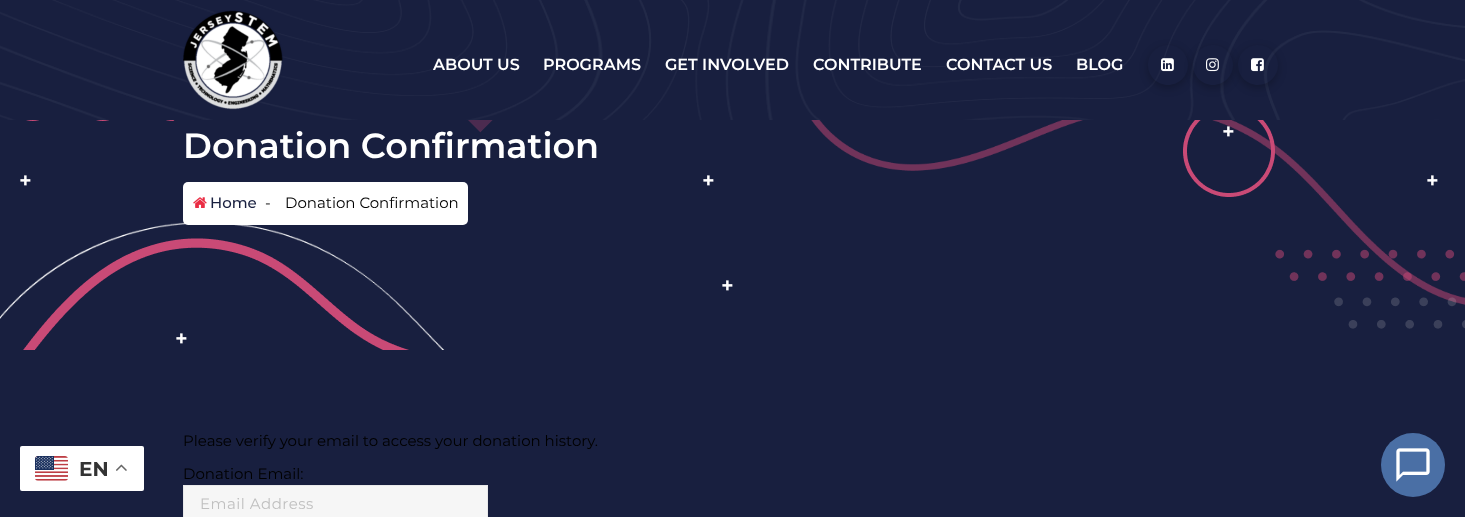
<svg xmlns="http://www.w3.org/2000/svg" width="1465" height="517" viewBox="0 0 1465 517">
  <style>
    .t1 { font: bold 20px Montserrat; fill: #333; }
    .t2 { font: 600 16px Montserrat; fill: #fff; }
    .t3 { font: 600 35px Montserrat; fill: #fff; }
    .t4 { font: 500 15px Montserrat; fill: #181f3f; }
    .t5 { font: 15px Montserrat; fill: #000; }
    .t6 { font: 15px Montserrat; letter-spacing: 0.5px; fill: #c0c0c0; }
  </style>
  <defs>
    <clipPath id="clip1"><path d="M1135 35H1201V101H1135ZM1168 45C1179 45 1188 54 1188 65C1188 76 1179 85 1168 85C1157 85 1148 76 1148 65C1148 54 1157 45 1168 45Z" clip-rule="evenodd"/></clipPath>
    <clipPath id="clip2"><path d="M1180 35H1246V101H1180ZM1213 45C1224 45 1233 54 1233 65C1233 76 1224 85 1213 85C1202 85 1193 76 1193 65C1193 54 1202 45 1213 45Z" clip-rule="evenodd"/></clipPath>
    <clipPath id="clip3"><path d="M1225 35H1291V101H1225ZM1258 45C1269 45 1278 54 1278 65C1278 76 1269 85 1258 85C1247 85 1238 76 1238 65C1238 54 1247 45 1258 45Z" clip-rule="evenodd"/></clipPath>
  </defs>
  <rect width="100%" height="100%" fill="#181f3f"/>
  <rect x="20" y="446" width="124" height="45" rx="2" fill="#fff"/>
  <image x="35" y="456" width="33" height="25" href="images/1.png"/>
  <text x="79" y="476" class="t1">EN</text>
  <image x="116" y="464" width="11" height="7" href="images/2.png"/>
  <image x="0" y="0" width="1465" height="120" href="images/3.png"/>
  <image x="183" y="10" width="100" height="100" href="images/4.png"/>
  <text x="433" y="70" class="t2">ABOUT US</text>
  <text x="543" y="70" class="t2">PROGRAMS</text>
  <text x="665" y="70" class="t2">GET INVOLVED</text>
  <text x="813" y="70" class="t2">CONTRIBUTE</text>
  <text x="946" y="70" class="t2">CONTACT US</text>
  <text x="1076" y="70" class="t2">BLOG</text>
  <g clip-path="url(#clip1)">
    <rect x="1148" y="48" width="40" height="40" rx="20" fill="#0000003d" filter="blur(4px)"/>
  </g>
  <image x="1161" y="58" width="13" height="14" href="images/5.png"/>
  <g clip-path="url(#clip2)">
    <rect x="1193" y="48" width="40" height="40" rx="20" fill="#0000003d" filter="blur(4px)"/>
  </g>
  <image x="1206" y="58" width="13" height="14" href="images/6.png"/>
  <g clip-path="url(#clip3)">
    <rect x="1238" y="48" width="40" height="40" rx="20" fill="#0000003d" filter="blur(4px)"/>
  </g>
  <image x="1251" y="58" width="13" height="14" href="images/7.png"/>
  <image x="26" y="120" width="149" height="1" href="images/8.png"/>
  <image x="468" y="120" width="25" height="13" href="images/9.png"/>
  <image x="811" y="120" width="654" height="185" href="images/10.png"/>
  <image x="1223" y="126" width="11" height="11" href="images/14.png"/>
  <image x="1183" y="120" width="92" height="77" href="images/11.png"/>
  <image x="20" y="175" width="11" height="11" href="images/12.png"/>
  <text x="183" y="158" class="t3">Donation Confirmation</text>
  <image x="176" y="333" width="11" height="11" href="images/12.png"/>
  <image x="23" y="238" width="386" height="112" href="images/16.png"/>
  <image x="0" y="222" width="445" height="128" href="images/15.png"/>
  <rect x="183" y="182" width="285" height="43" rx="5" fill="#fff"/>
  <image x="193" y="197" width="14" height="11" href="images/13.png"/>
  <text x="210" y="208" class="t4">Home</text>
  <text x="265" y="208" class="t5">-</text>
  <text x="285" y="208" class="t5">Donation Confirmation</text>
  <image x="703" y="175" width="11" height="11" href="images/12.png"/>
  <image x="1427" y="175" width="11" height="11" href="images/12.png"/>
  <image x="722" y="280" width="11" height="11" href="images/12.png"/>
  <image x="1275" y="249" width="190" height="80" href="images/17.png"/>
  <text x="183" y="446" class="t5">Please verify your email to access your donation history.</text>
  <text x="183" y="479" class="t5">Donation Email:</text>
  <rect x="183.5" y="485.5" width="304" height="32" fill="#f6f6f6" stroke="#e9e9ea"/>
  <text x="200" y="509" class="t6">Email Address</text>
  <circle cx="1413" cy="465" r="32" fill="#4a6fa5"/>
  <image x="1396" y="448" width="34" height="34" href="images/18.png"/>
</svg>
